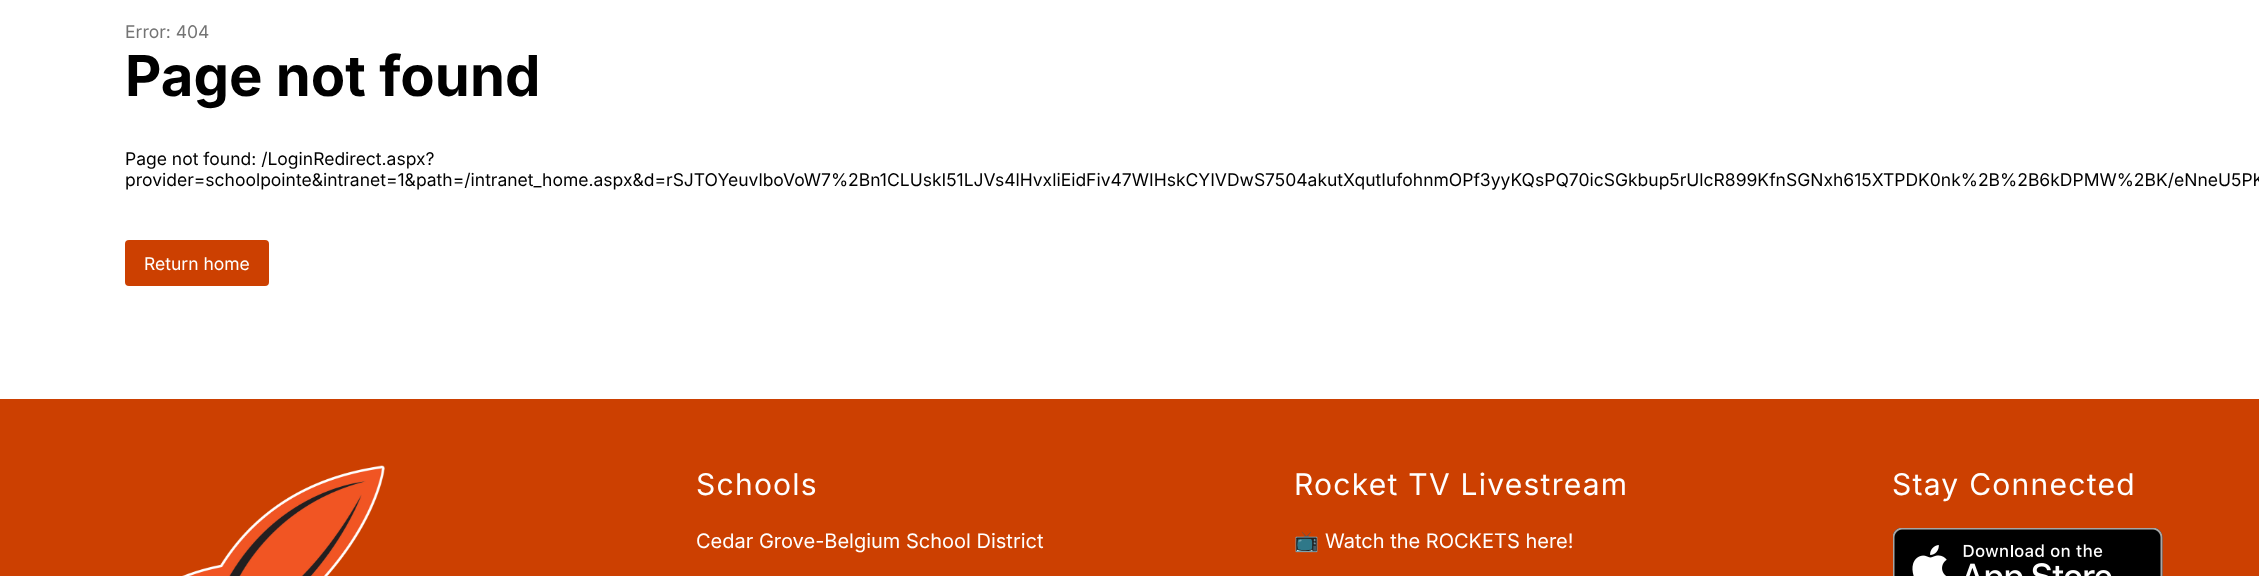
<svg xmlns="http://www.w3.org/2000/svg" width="2259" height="576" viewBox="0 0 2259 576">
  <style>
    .t1 { font: 17.5px Inter; fill: #747474; }
    .t2 { font: bold 56.25px Inter; fill: #000; }
    .t3 { font: 17.5px Inter; fill: #000; }
    .t4 { font: 17.5px Inter; fill: #fff; }
    .t5 { font: 30px Inter; letter-spacing: 1.25px; fill: #fff; }
    .t6 { font: 20px Inter; fill: #fff; }
    .t7 { font: 20px Noto Color Emoji; fill: #fff; }
  </style>
  <rect width="100%" height="100%" fill="#fff"/>
  <text x="125" y="38" class="t1">Error: 404</text>
  <text x="125" y="96" class="t2">Page not found</text>
  <text x="125" y="165" class="t3">Page not found: /LoginRedirect.aspx?</text>
  <text x="125" y="186" class="t3">provider=schoolpointe&amp;intranet=1&amp;path=/intranet_home.aspx&amp;d=rSJTOYeuvlboVoW7%2Bn1CLUskI51LJVs4lHvxliEidFiv47WIHskCYIVDwS7504akutXqutIufohnmOPf3yyKQsPQ70icSGkbup5rUlcR899KfnSGNxh615XTPDK0nk%2B%2B6kDPMW%2BK/eNneU5PK</text>
  <rect x="125" y="240" width="144" height="46" rx="4" fill="#cc4001"/>
  <text x="144" y="270" class="t4">Return home</text>
  <rect x="0" y="399" width="2259" height="177" fill="#cc4001"/>
  <image x="182" y="465" width="203" height="111" href="images/1.png"/>
  <text x="696" y="495" class="t5">Schools</text>
  <text x="696" y="548" class="t6">Cedar Grove-Belgium School District</text>
  <text x="1294" y="495" class="t5">Rocket TV Livestream</text>
  <text x="1294" y="548" class="t7">📺</text>
  <text x="1325" y="548" class="t6">Watch the ROCKETS here!</text>
  <text x="1892" y="495" class="t5">Stay Connected</text>
  <image x="1893" y="528" width="270" height="48" href="images/2.png"/>
</svg>
